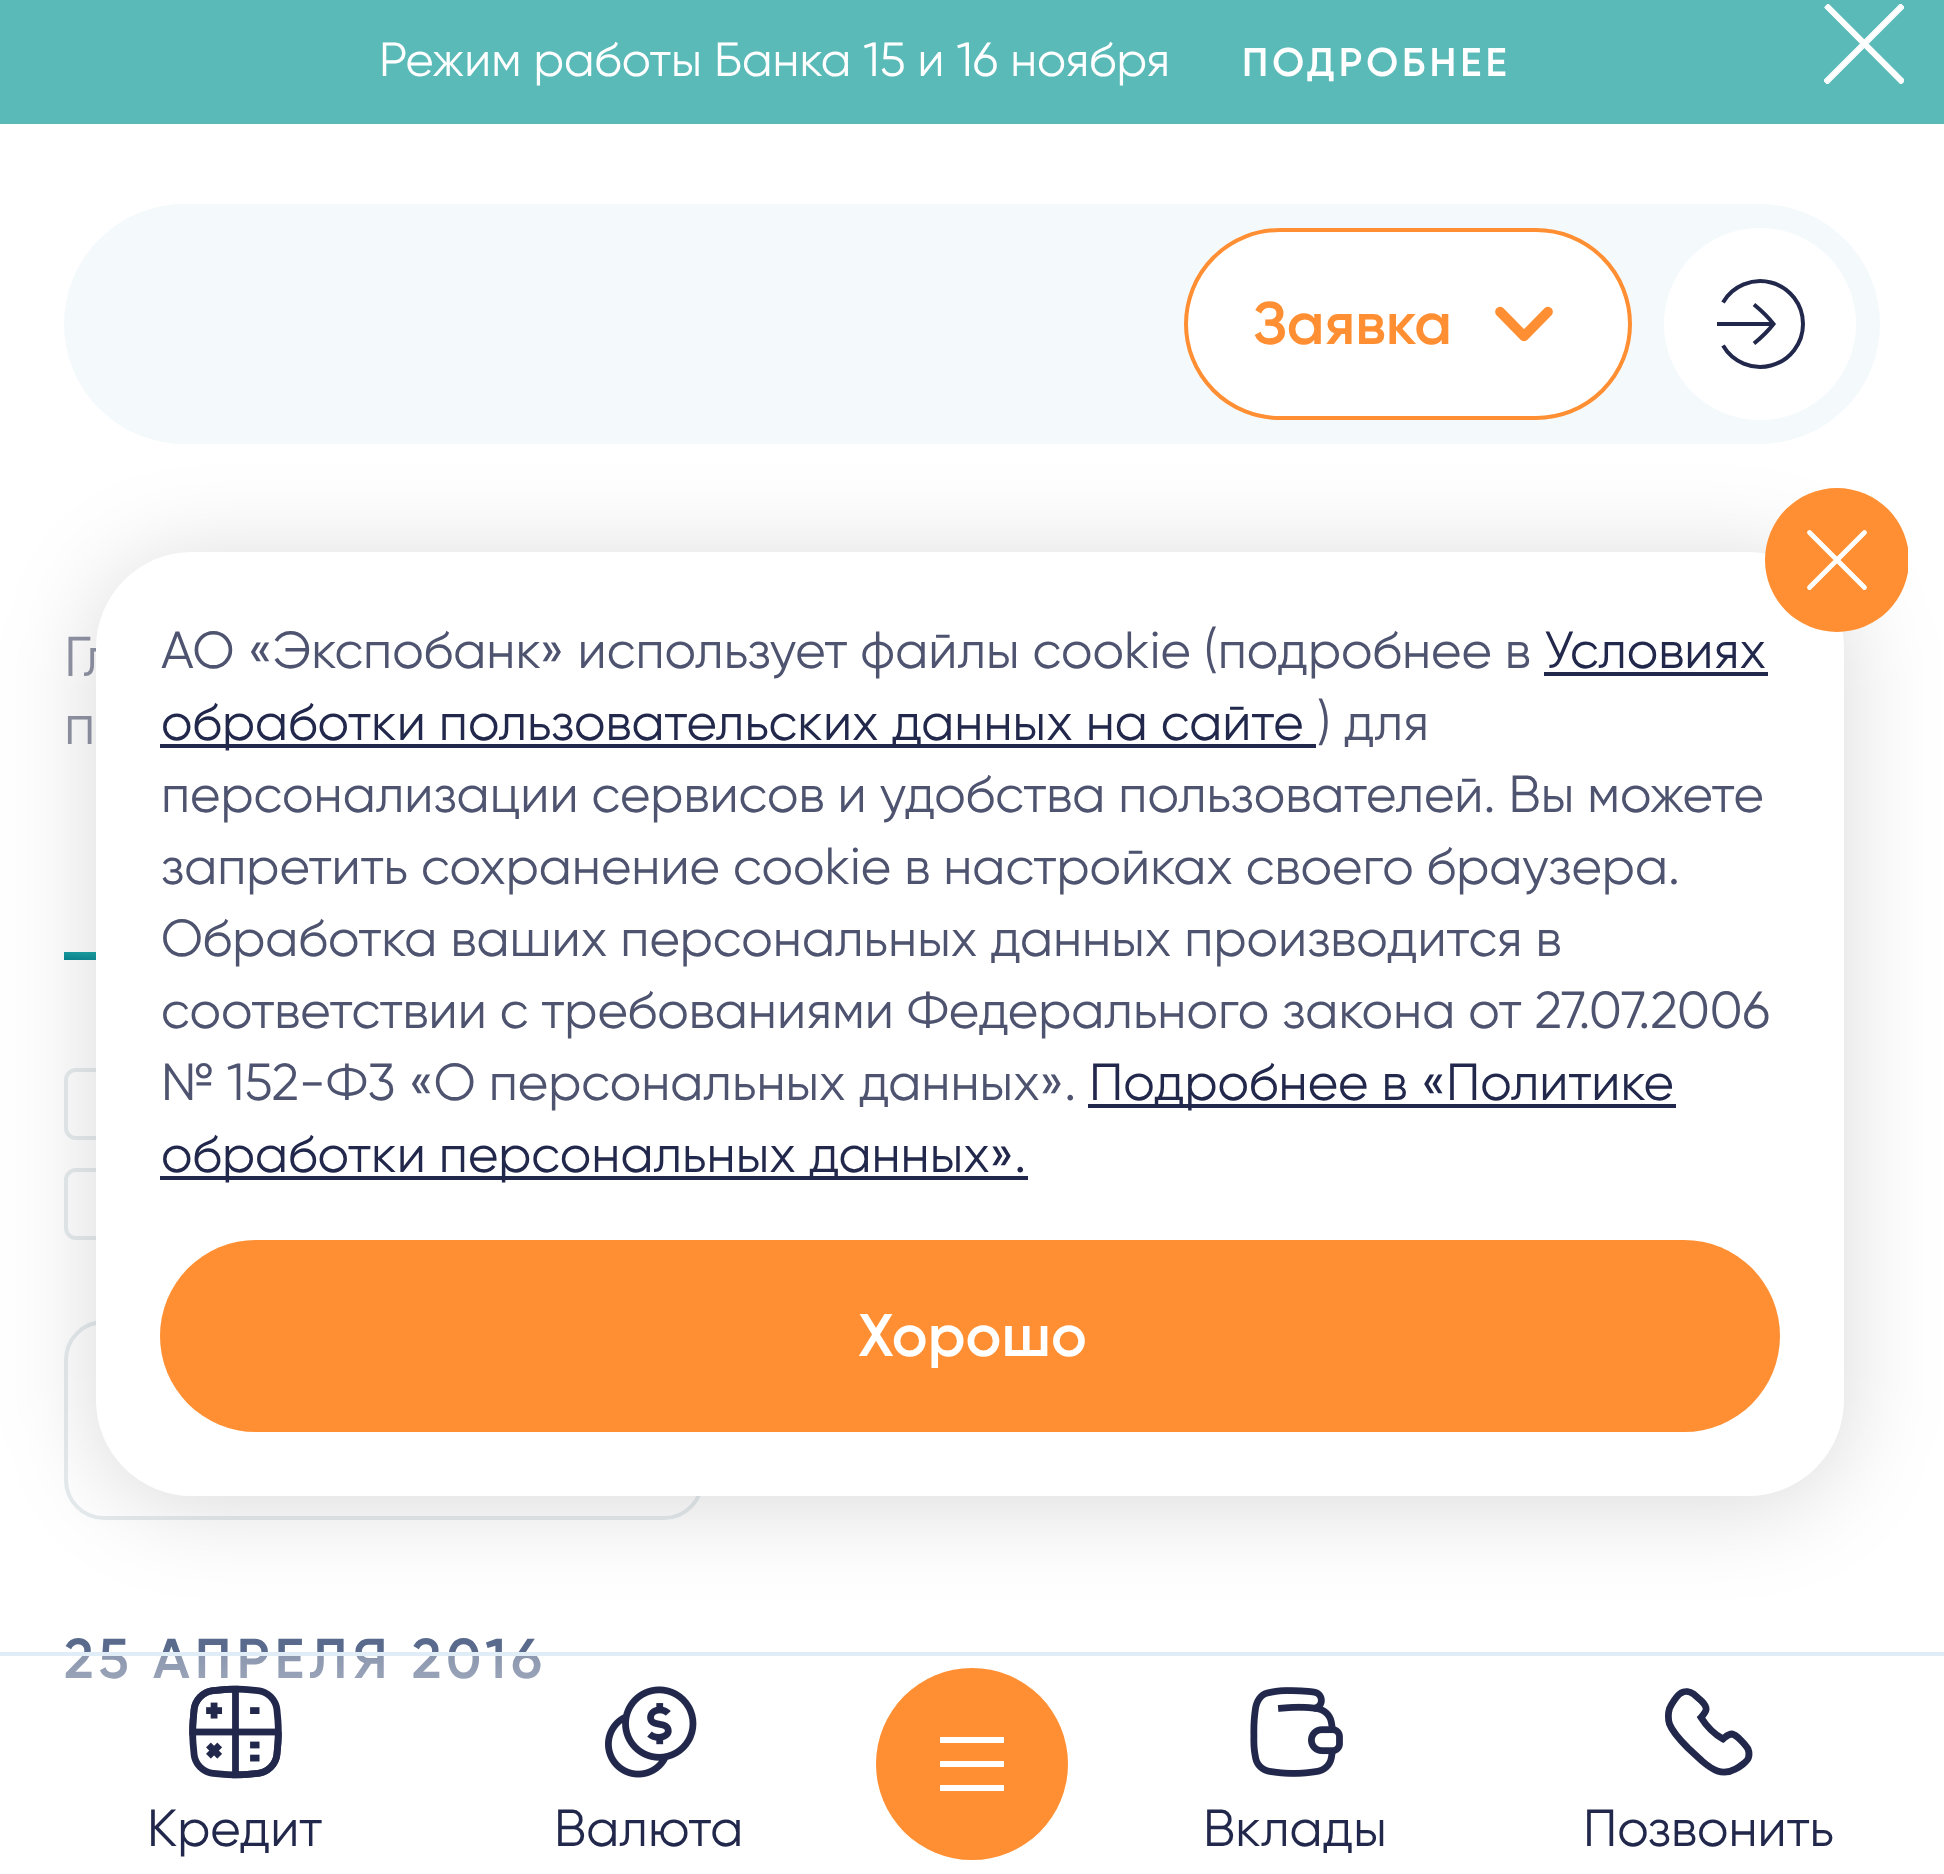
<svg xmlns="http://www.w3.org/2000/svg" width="1944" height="1874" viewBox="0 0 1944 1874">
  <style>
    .t1 { font: 48px Gilroy; fill: #fff; }
    .t2 { font: 600 40px Gilroy; letter-spacing: 4px; fill: #fff; }
    .t3 { font: 600 60px Gilroy; fill: #ff8f32; }
    .t4 { font: 56px Gilroy; fill: #9194a5; }
    .t5 { font: 600 56px Gilroy; letter-spacing: 5.1px; fill: #596a8c; }
    .t6 { font: 52px Gilroy; fill: #4e536f; }
    .t7 { font: 52px Gilroy; fill: #22284b; }
    .t8 { font: 600 60px Gilroy; fill: #fff; }
  </style>
  <defs>
    <clipPath id="clip1"><rect x="1824" y="4" width="80" height="80"/></clipPath>
    <linearGradient id="g1" gradientUnits="userSpaceOnUse" x1="219" y1="981" x2="225" y2="932"><stop offset="0" stop-color="#067f8c"/><stop offset="0.34" stop-color="#23b0b0"/><stop offset="0.88" stop-color="#80f1dd"/></linearGradient>
    <clipPath id="clip2"><rect x="1764" y="488" width="144" height="144"/></clipPath>
    <linearGradient id="g2" gradientUnits="userSpaceOnUse" x1="972" y1="1652" x2="972" y2="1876"><stop offset="0" stop-color="#fff" stop-opacity="0.3"/><stop offset="1" stop-color="#fff"/></linearGradient>
  </defs>
  <rect width="100%" height="100%" fill="#fff"/>
  <rect x="0" y="0" width="1944" height="124" fill="#5abab8"/>
  <text x="379" y="76" class="t1">Режим работы Банка 15 и 16 ноября</text>
  <text x="1242" y="76" class="t2">ПОДРОБНЕЕ</text>
  <path d="M1824 81L1901 4L1904 7L1827 84Z" fill="#fff"/>
  <g clip-path="url(#clip1)">
    <path d="M1824 80.5L1900.5 4L1904 7.5L1827.5 84Z" fill="none" stroke="#fff" stroke-width="1.3"/>
  </g>
  <path d="M1825 8L1828 4L1904 80L1901 84Z" fill="#fff"/>
  <g clip-path="url(#clip1)">
    <path d="M1825 7.5L1828 4L1904.5 80.5L1901 84Z" fill="none" stroke="#fff" stroke-width="1.3"/>
  </g>
  <rect x="64" y="204" width="1816" height="240" rx="120" fill="#f4f9fc"/>
  <rect x="1186" y="230" width="444" height="188" rx="94" fill="#fff" stroke="#ff8f32" stroke-width="4"/>
  <text x="1253" y="344" class="t3">Заявка</text>
  <image x="1495" y="306" width="58" height="36" href="images/1.png"/>
  <circle cx="1760" cy="324" r="96" fill="#fff"/>
  <path d="M1723 302.5C1732.5 286 1752.5 277.5 1771 282.5C1790 287.5 1803 304.5 1803 324C1803 343.5 1790 360.5 1771 365.5C1752.5 370.5 1732.5 362 1723 345.5M1754 304.5C1762.5 311.5 1767 315.5 1773.5 324C1767 332.5 1762.5 336.5 1754 343.5M1717 324H1773.5" fill="none" stroke="#22284b" stroke-width="4"/>
  <text x="64" y="676" class="t4">Гл</text>
  <text x="64" y="744" class="t4">п</text>
  <rect x="64" y="952" width="32" height="8" fill="url(#g1)"/>
  <rect x="66" y="1070" width="68" height="68" rx="10" fill="none" stroke="#e6ecee" stroke-width="4"/>
  <rect x="66" y="1170" width="68" height="68" rx="10" fill="none" stroke="#e6ecee" stroke-width="4"/>
  <rect x="66" y="1322" width="636" height="196" rx="38" fill="none" stroke="#e6ecee" stroke-width="4"/>
  <text x="64" y="1678" class="t5">25 АПРЕЛЯ 2016</text>
  <rect x="96" y="560" width="1748" height="944" rx="96" fill="#00000026" filter="blur(48px)"/>
  <rect x="96" y="552" width="1748" height="944" rx="96" fill="#fff"/>
  <g clip-path="url(#clip2)">
    <circle cx="1837" cy="560" r="72" fill="#ff8f32"/>
  </g>
  <path d="M1864.5 587.5L1809.5 532.5M1809.5 587.5L1864.5 532.5" fill="none" stroke="#fff" stroke-width="4.8" stroke-linecap="round"/>
  <text x="161" y="668" class="t6">АО «Экспобанк» использует файлы cookie (подробнее в</text>
  <text x="1544" y="668" class="t7">Условиях</text>
  <rect x="1544" y="672" width="224" height="4" fill="#22284b"/>
  <rect x="160" y="744" width="1156" height="4" fill="#22284b"/>
  <text x="161" y="740" class="t7">обработки пользовательских данных на сайте</text>
  <text x="1317" y="740" class="t6">) для</text>
  <text x="161" y="812" class="t6">персонализации сервисов и удобства пользователей. Вы можете</text>
  <text x="161" y="884" class="t6">запретить сохранение cookie в настройках своего браузера.</text>
  <text x="161" y="956" class="t6">Обработка ваших персональных данных производится в</text>
  <text x="161" y="1028" class="t6">соответствии с требованиями Федерального закона от 27.07.2006</text>
  <text x="161" y="1100" class="t6">№ 152-Ф3 «О персональных данных».</text>
  <rect x="1088" y="1104" width="588" height="4" fill="#22284b"/>
  <text x="1089" y="1100" class="t7">Подробнее в «Политике</text>
  <rect x="160" y="1176" width="868" height="4" fill="#22284b"/>
  <text x="161" y="1172" class="t7">обработки персональных данных».</text>
  <rect x="160" y="1240" width="1620" height="192" rx="96" fill="#ff8f32"/>
  <text x="858" y="1356" class="t8">Хорошо</text>
  <rect x="65" y="1656" width="475" height="23" fill="url(#g2)"/>
  <rect x="0" y="1652" width="1944" height="4" fill="#e0edf6"/>
  <image x="189" y="1685" width="93" height="94" href="images/2.png"/>
  <text x="147" y="1846" class="t7">Кредит</text>
  <image x="605" y="1686" width="92" height="92" href="images/3.png"/>
  <text x="554" y="1846" class="t7">Валюта</text>
  <circle cx="972" cy="1764" r="96" fill="#ff8f32"/>
  <path d="M940 1740H1004M940 1764H1004M940 1788H1004" fill="none" stroke="#fff" stroke-width="6"/>
  <image x="1250" y="1687" width="93" height="90" href="images/4.png"/>
  <text x="1203" y="1846" class="t7">Вклады</text>
  <path d="M1693.5 1694C1690 1691.5 1685 1690.5 1681 1693C1677 1695 1671 1705 1669.5 1708.5C1668 1713.5 1668 1719 1669.5 1724C1672.5 1732 1682 1742 1688 1748L1702 1761C1712 1769.5 1722 1776.5 1735.5 1769C1739.5 1767 1747.5 1761.5 1748.5 1757.5C1749.5 1754.5 1749 1751.5 1748 1749C1746 1745.5 1736.5 1734.5 1732 1734C1728 1734 1725.5 1737 1723 1739C1713 1733.5 1707 1727 1701 1717.5C1707 1711 1708.5 1708 1701.5 1701Z" fill="none" stroke="#22284b" stroke-width="6.8"/>
  <text x="1583" y="1846" class="t7">Позвонить</text>
</svg>
